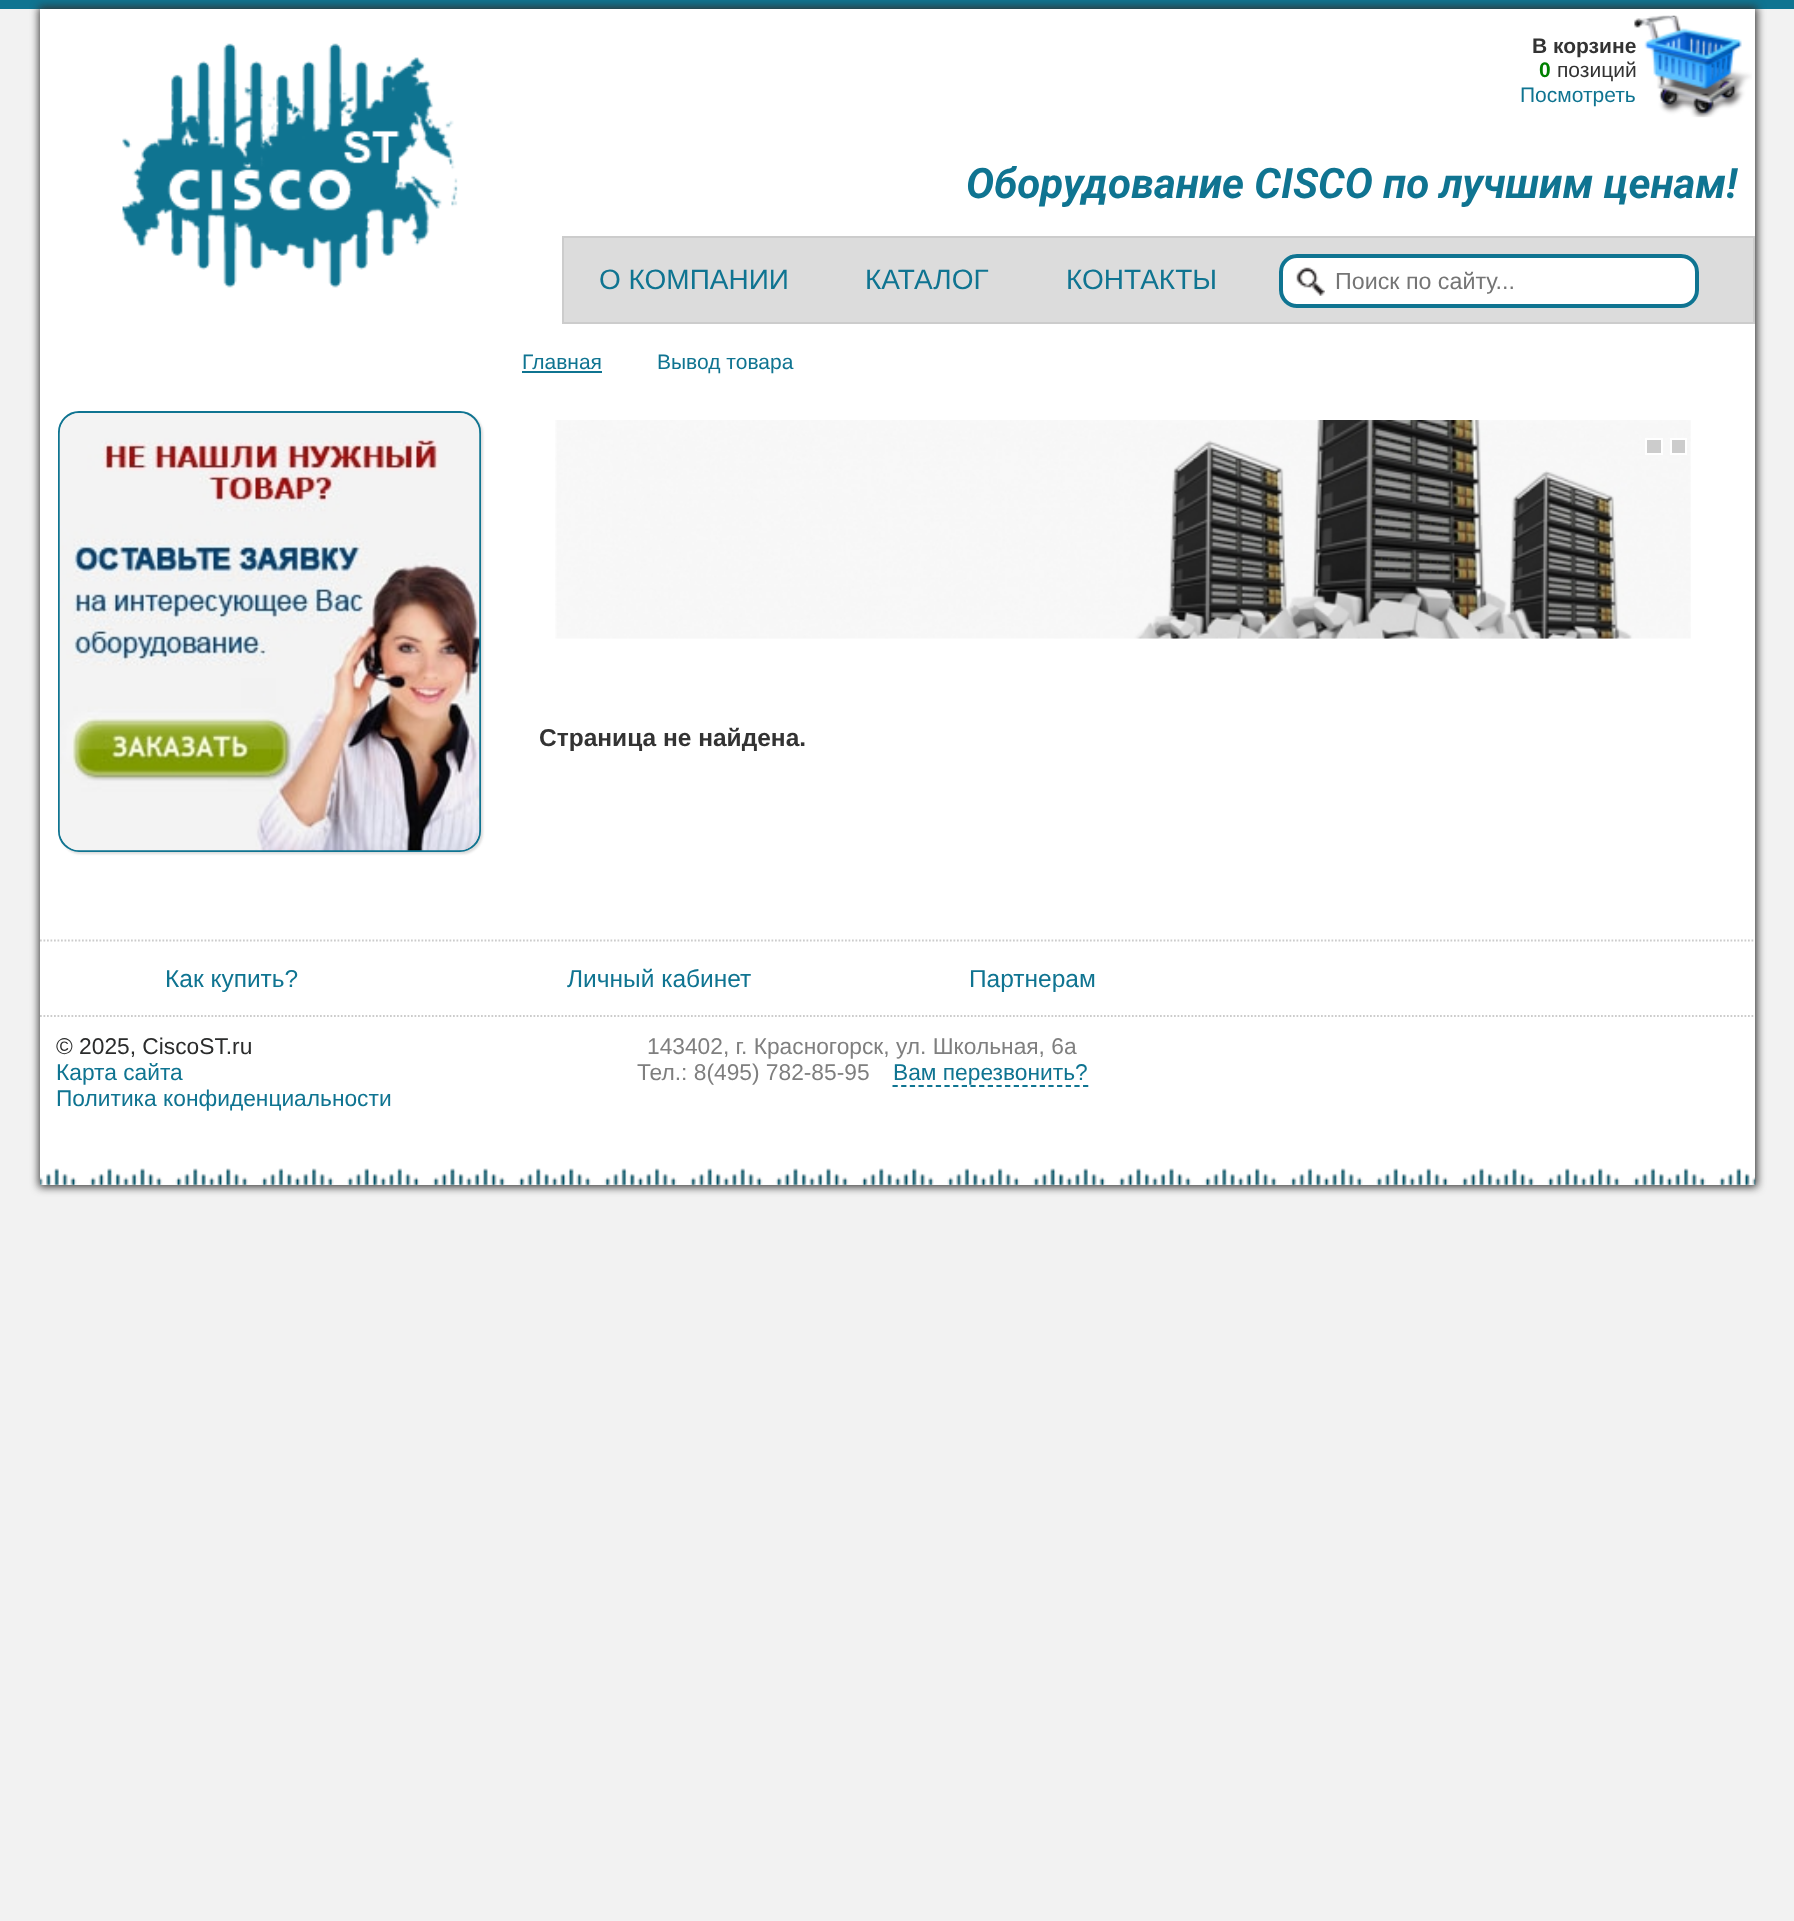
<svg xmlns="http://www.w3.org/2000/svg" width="1794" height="1921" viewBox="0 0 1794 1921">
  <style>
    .t1 { font: bold 21px Liberation Sans; fill: #333; }
    .t2 { font: bold 21px Liberation Sans; fill: #008000; }
    .t3 { font: 21px Liberation Sans; fill: #333; }
    .t4 { font: 21px Liberation Sans; fill: #0f7491; }
    .t5 { font: italic bold 42px Roboto; fill: #0f7491; }
    .t6 { font: 28px Liberation Sans; fill: #0f7491; }
    .t7 { font: 23.25px Liberation Sans; fill: #757575; }
    .t8 { font: bold 24.5px Liberation Sans; fill: #333; }
    .t9 { font: 24.5px Liberation Sans; fill: #0f7491; }
    .t10 { font: 22.75px Liberation Sans; fill: #2b2c2c; }
    .t11 { font: 22.75px Liberation Sans; fill: #0f7491; }
    .t12 { font: 22.75px Liberation Sans; fill: #7f7f7f; }
  </style>
  <rect width="100%" height="100%" fill="#f2f2f2"/>
  <rect x="0" y="0" width="1794" height="9" fill="#0f7491"/>
  <rect x="39" y="7" width="1718" height="1180" fill="#333" filter="blur(4.5px)"/>
  <rect x="40" y="9" width="1715" height="1176" fill="#fff"/>
  <image x="122" y="43" width="336" height="245" href="images/1.png"/>
  <image x="1634" y="15" width="118" height="103" href="images/2.png"/>
  <text x="1532" y="53" class="t1">В корзине</text>
  <text x="1539" y="77" class="t2">0</text>
  <text x="1557" y="77" class="t3">позиций</text>
  <text x="1520" y="102" class="t4">Посмотреть</text>
  <text x="966" y="198" class="t5">Оборудование CISCO по лучшим ценам!</text>
  <rect x="563" y="237" width="1191" height="86" fill="#dcdcdc" stroke="#ccc" stroke-width="2"/>
  <text x="599" y="289" class="t6">О КОМПАНИИ</text>
  <text x="865" y="289" class="t6">КАТАЛОГ</text>
  <text x="1066" y="289" class="t6">КОНТАКТЫ</text>
  <rect x="1279" y="254" width="420" height="54" rx="18" fill="#fff"/>
  <image x="1296" y="267" width="29" height="29" href="images/3.png"/>
  <rect x="1281" y="256" width="416" height="50" rx="16" fill="none" stroke="#0f7491" stroke-width="4"/>
  <text x="1335" y="289" class="t7">Поиск по сайту...</text>
  <text x="522" y="369" class="t4">Главная</text>
  <rect x="522" y="371" width="80" height="2" fill="#0f7491"/>
  <text x="657" y="369" class="t4">Вывод товара</text>
  <rect x="60" y="413" width="423" height="441" rx="21" fill="#dcdcdc" filter="blur(1px)"/>
  <rect x="59" y="412" width="421" height="439" rx="20" fill="none" stroke="#0f7491" stroke-width="2"/>
  <image x="59" y="413" width="421" height="438" href="images/4.png"/>
  <image x="555" y="420" width="1136" height="219" href="images/5.png"/>
  <rect x="1646" y="439" width="16" height="15" fill="#ccc" stroke="#fff" stroke-width="2"/>
  <rect x="1671" y="439" width="15" height="15" fill="#ccc" stroke="#fff" stroke-width="2"/>
  <text x="539" y="746" class="t8">Cтраница не найдена.</text>
  <image x="40" y="1168" width="1716" height="17" href="images/6.png"/>
  <path d="M40 940.5H1755" fill="none" stroke="#ccc" stroke-width="1.8" stroke-dasharray="1.75 1.75"/>
  <path d="M40 1016H1755" fill="none" stroke="#ccc" stroke-width="1.8" stroke-dasharray="1.75 1.75"/>
  <text x="165" y="987" class="t9">Как купить?</text>
  <text x="567" y="987" class="t9">Личный кабинет</text>
  <text x="969" y="987" class="t9">Партнерам</text>
  <text x="56" y="1054" class="t10">© 2025, CiscoST.ru</text>
  <text x="56" y="1080" class="t11">Карта сайта</text>
  <text x="56" y="1106" class="t11">Политика конфиденциальности</text>
  <text x="647" y="1054" class="t12">143402, г. Красногорск, ул. Школьная, 6а</text>
  <text x="637" y="1080" class="t12">Тел.: 8(495) 782-85-95</text>
  <text x="893" y="1080" class="t11">Вам перезвонить?</text>
  <path d="M892.5 1086H1088.5" fill="none" stroke="#0f7491" stroke-width="1.8" stroke-dasharray="5.25 3.41"/>
</svg>
